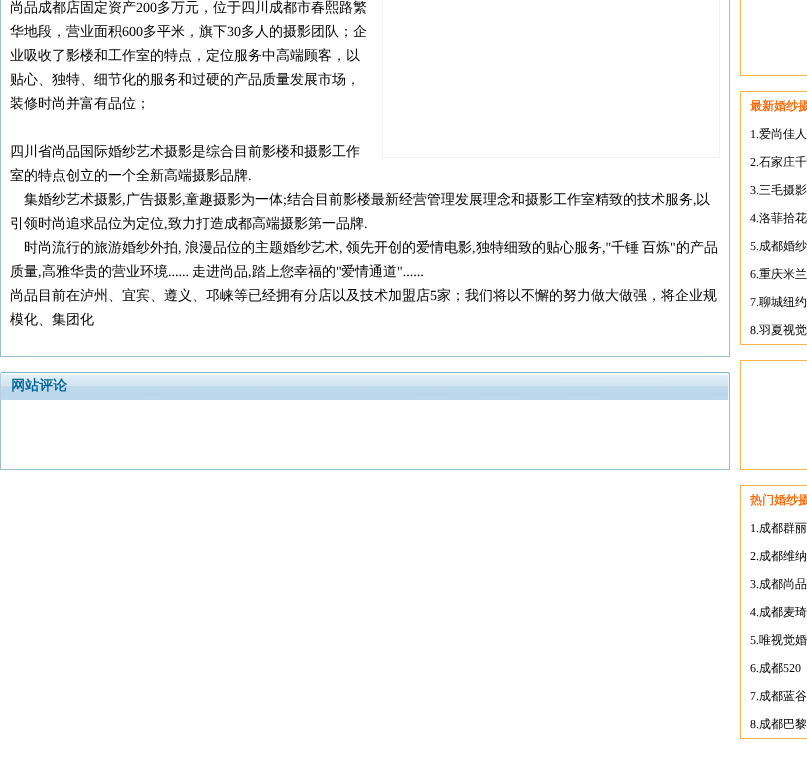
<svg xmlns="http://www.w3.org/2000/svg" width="807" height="761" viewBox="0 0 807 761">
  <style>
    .t1 { font: 500 14px WenQuanYi Zen Hei; fill: #000; }
    .t2 { font: 14px Liberation Serif; fill: #000; }
    .t3 { font: bold 14px WenQuanYi Zen Hei; fill: #069; }
    .t4 { font: bold 12px WenQuanYi Zen Hei; fill: #f60; }
    .t5 { font: 12px Liberation Serif; fill: #000; }
    .t6 { font: 500 12px WenQuanYi Zen Hei; fill: #000; }
  </style>
  <rect width="100%" height="100%" fill="#fff"/>
  <rect x="729" y="0" width="1" height="357" fill="#9bbdd3"/>
  <rect x="0" y="356" width="730" height="1" fill="#9bbdd3"/>
  <rect x="0" y="0" width="1" height="357" fill="#9bbdd3"/>
  <text x="10" y="12" class="t1">尚品成都店固定资产</text>
  <text x="136" y="12" class="t2">200</text>
  <text x="157" y="12" class="t1">多万元，位于四川成都市春熙路繁</text>
  <rect x="382.5" y="-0.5" width="337" height="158" fill="none" stroke="#f2f2f2"/>
  <text x="10" y="36" class="t1">华地段，营业面积</text>
  <text x="122" y="36" class="t2">600</text>
  <text x="143" y="36" class="t1">多平米，旗下</text>
  <text x="227" y="36" class="t2">30</text>
  <text x="241" y="36" class="t1">多人的摄影团队；企</text>
  <text x="10" y="60" class="t1">业吸收了影楼和工作室的特点，定位服务中高端顾客，以</text>
  <text x="10" y="84" class="t1">贴心、独特、细节化的服务和过硬的产品质量发展市场，</text>
  <text x="10" y="108" class="t1">装修时尚并富有品位；</text>
  <text x="10" y="156" class="t1">四川省尚品国际婚纱艺术摄影是综合目前影楼和摄影工作</text>
  <text x="10" y="180" class="t1">室的特点创立的一个全新高端摄影品牌</text>
  <text x="248" y="180" class="t2">.</text>
  <text x="24" y="204" class="t1">集婚纱艺术摄影</text>
  <text x="122" y="204" class="t2">,</text>
  <text x="126" y="204" class="t1">广告摄影</text>
  <text x="182" y="204" class="t2">,</text>
  <text x="185" y="204" class="t1">童趣摄影为一体</text>
  <text x="283" y="204" class="t2">;</text>
  <text x="287" y="204" class="t1">结合目前影楼最新经营管理发展理念和摄影工作室精致的技术服务</text>
  <text x="693" y="204" class="t2">,</text>
  <text x="696" y="204" class="t1">以</text>
  <text x="10" y="228" class="t1">引领时尚追求品位为定位</text>
  <text x="164" y="228" class="t2">,</text>
  <text x="168" y="228" class="t1">致力打造成都高端摄影第一品牌</text>
  <text x="364" y="228" class="t2">.</text>
  <text x="24" y="252" class="t1">时尚流行的旅游婚纱外拍</text>
  <text x="185" y="252" class="t1">浪漫品位的主题婚纱艺术</text>
  <text x="346" y="252" class="t1">领先开创的爱情电影</text>
  <text x="476" y="252" class="t1">独特细致的贴心服务</text>
  <text x="602" y="252" class="t2">,"</text>
  <text x="611" y="252" class="t1">千锤</text>
  <text x="642" y="252" class="t1">百炼</text>
  <text x="670" y="252" class="t2">"</text>
  <text x="676" y="252" class="t1">的产品</text>
  <text x="178" y="252" class="t2">,</text>
  <text x="339" y="252" class="t2">,</text>
  <text x="472" y="252" class="t2">,</text>
  <text x="10" y="276" class="t1">质量</text>
  <text x="38" y="276" class="t2">,</text>
  <text x="42" y="276" class="t1">高雅华贵的营业环境</text>
  <text x="168" y="276" class="t2">......</text>
  <text x="192" y="276" class="t1">走进尚品</text>
  <text x="248" y="276" class="t2">,</text>
  <text x="252" y="276" class="t1">踏上您幸福的</text>
  <text x="336" y="276" class="t2">"</text>
  <text x="341" y="276" class="t1">爱情通道</text>
  <text x="397" y="276" class="t2">"......</text>
  <text x="10" y="300" class="t1">尚品目前在泸州、宜宾、遵义、邛崃等已经拥有分店以及技术加盟店</text>
  <text x="430" y="300" class="t2">5</text>
  <text x="437" y="300" class="t1">家；我们将以不懈的努力做大做强，将企业规</text>
  <text x="10" y="324" class="t1">模化、集团化</text>
  <rect x="0" y="373" width="1" height="27" fill="#bacbe0"/>
  <image x="1" y="372" width="729" height="28" href="images/1.png"/>
  <text x="11" y="390" class="t3">网站评论</text>
  <rect x="729" y="400" width="1" height="70" fill="#9bbdd3"/>
  <rect x="0" y="469" width="730" height="1" fill="#9bbdd3"/>
  <rect x="0" y="400" width="1" height="70" fill="#9bbdd3"/>
  <rect x="740.5" y="-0.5" width="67" height="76" fill="none" stroke="#ffb64b"/>
  <rect x="740.5" y="91.5" width="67" height="253" fill="none" stroke="#ffb64b"/>
  <text x="750" y="110" class="t4">最新婚纱摄</text>
  <text x="750" y="138" class="t5">1.</text>
  <text x="759" y="138" class="t6">爱尚佳人</text>
  <text x="750" y="166" class="t5">2.</text>
  <text x="759" y="166" class="t6">石家庄千</text>
  <text x="750" y="194" class="t5">3.</text>
  <text x="759" y="194" class="t6">三毛摄影</text>
  <text x="750" y="222" class="t5">4.</text>
  <text x="759" y="222" class="t6">洛菲拾花</text>
  <text x="750" y="250" class="t5">5.</text>
  <text x="759" y="250" class="t6">成都婚纱</text>
  <text x="750" y="278" class="t5">6.</text>
  <text x="759" y="278" class="t6">重庆米兰</text>
  <text x="750" y="306" class="t5">7.</text>
  <text x="759" y="306" class="t6">聊城纽约</text>
  <text x="750" y="334" class="t5">8.</text>
  <text x="759" y="334" class="t6">羽夏视觉</text>
  <rect x="740.5" y="360.5" width="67" height="109" fill="none" stroke="#ffb64b"/>
  <rect x="740.5" y="485.5" width="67" height="253" fill="none" stroke="#ffb64b"/>
  <text x="750" y="504" class="t4">热门婚纱摄</text>
  <text x="750" y="532" class="t5">1.</text>
  <text x="759" y="532" class="t6">成都群丽</text>
  <text x="750" y="560" class="t5">2.</text>
  <text x="759" y="560" class="t6">成都维纳</text>
  <text x="750" y="588" class="t5">3.</text>
  <text x="759" y="588" class="t6">成都尚品</text>
  <text x="750" y="616" class="t5">4.</text>
  <text x="759" y="616" class="t6">成都麦琦</text>
  <text x="750" y="644" class="t5">5.</text>
  <text x="759" y="644" class="t6">唯视觉婚</text>
  <text x="750" y="672" class="t5">6.</text>
  <text x="759" y="672" class="t6">成都</text>
  <text x="783" y="672" class="t5">520</text>
  <text x="750" y="700" class="t5">7.</text>
  <text x="759" y="700" class="t6">成都蓝谷</text>
  <text x="750" y="728" class="t5">8.</text>
  <text x="759" y="728" class="t6">成都巴黎</text>
</svg>
